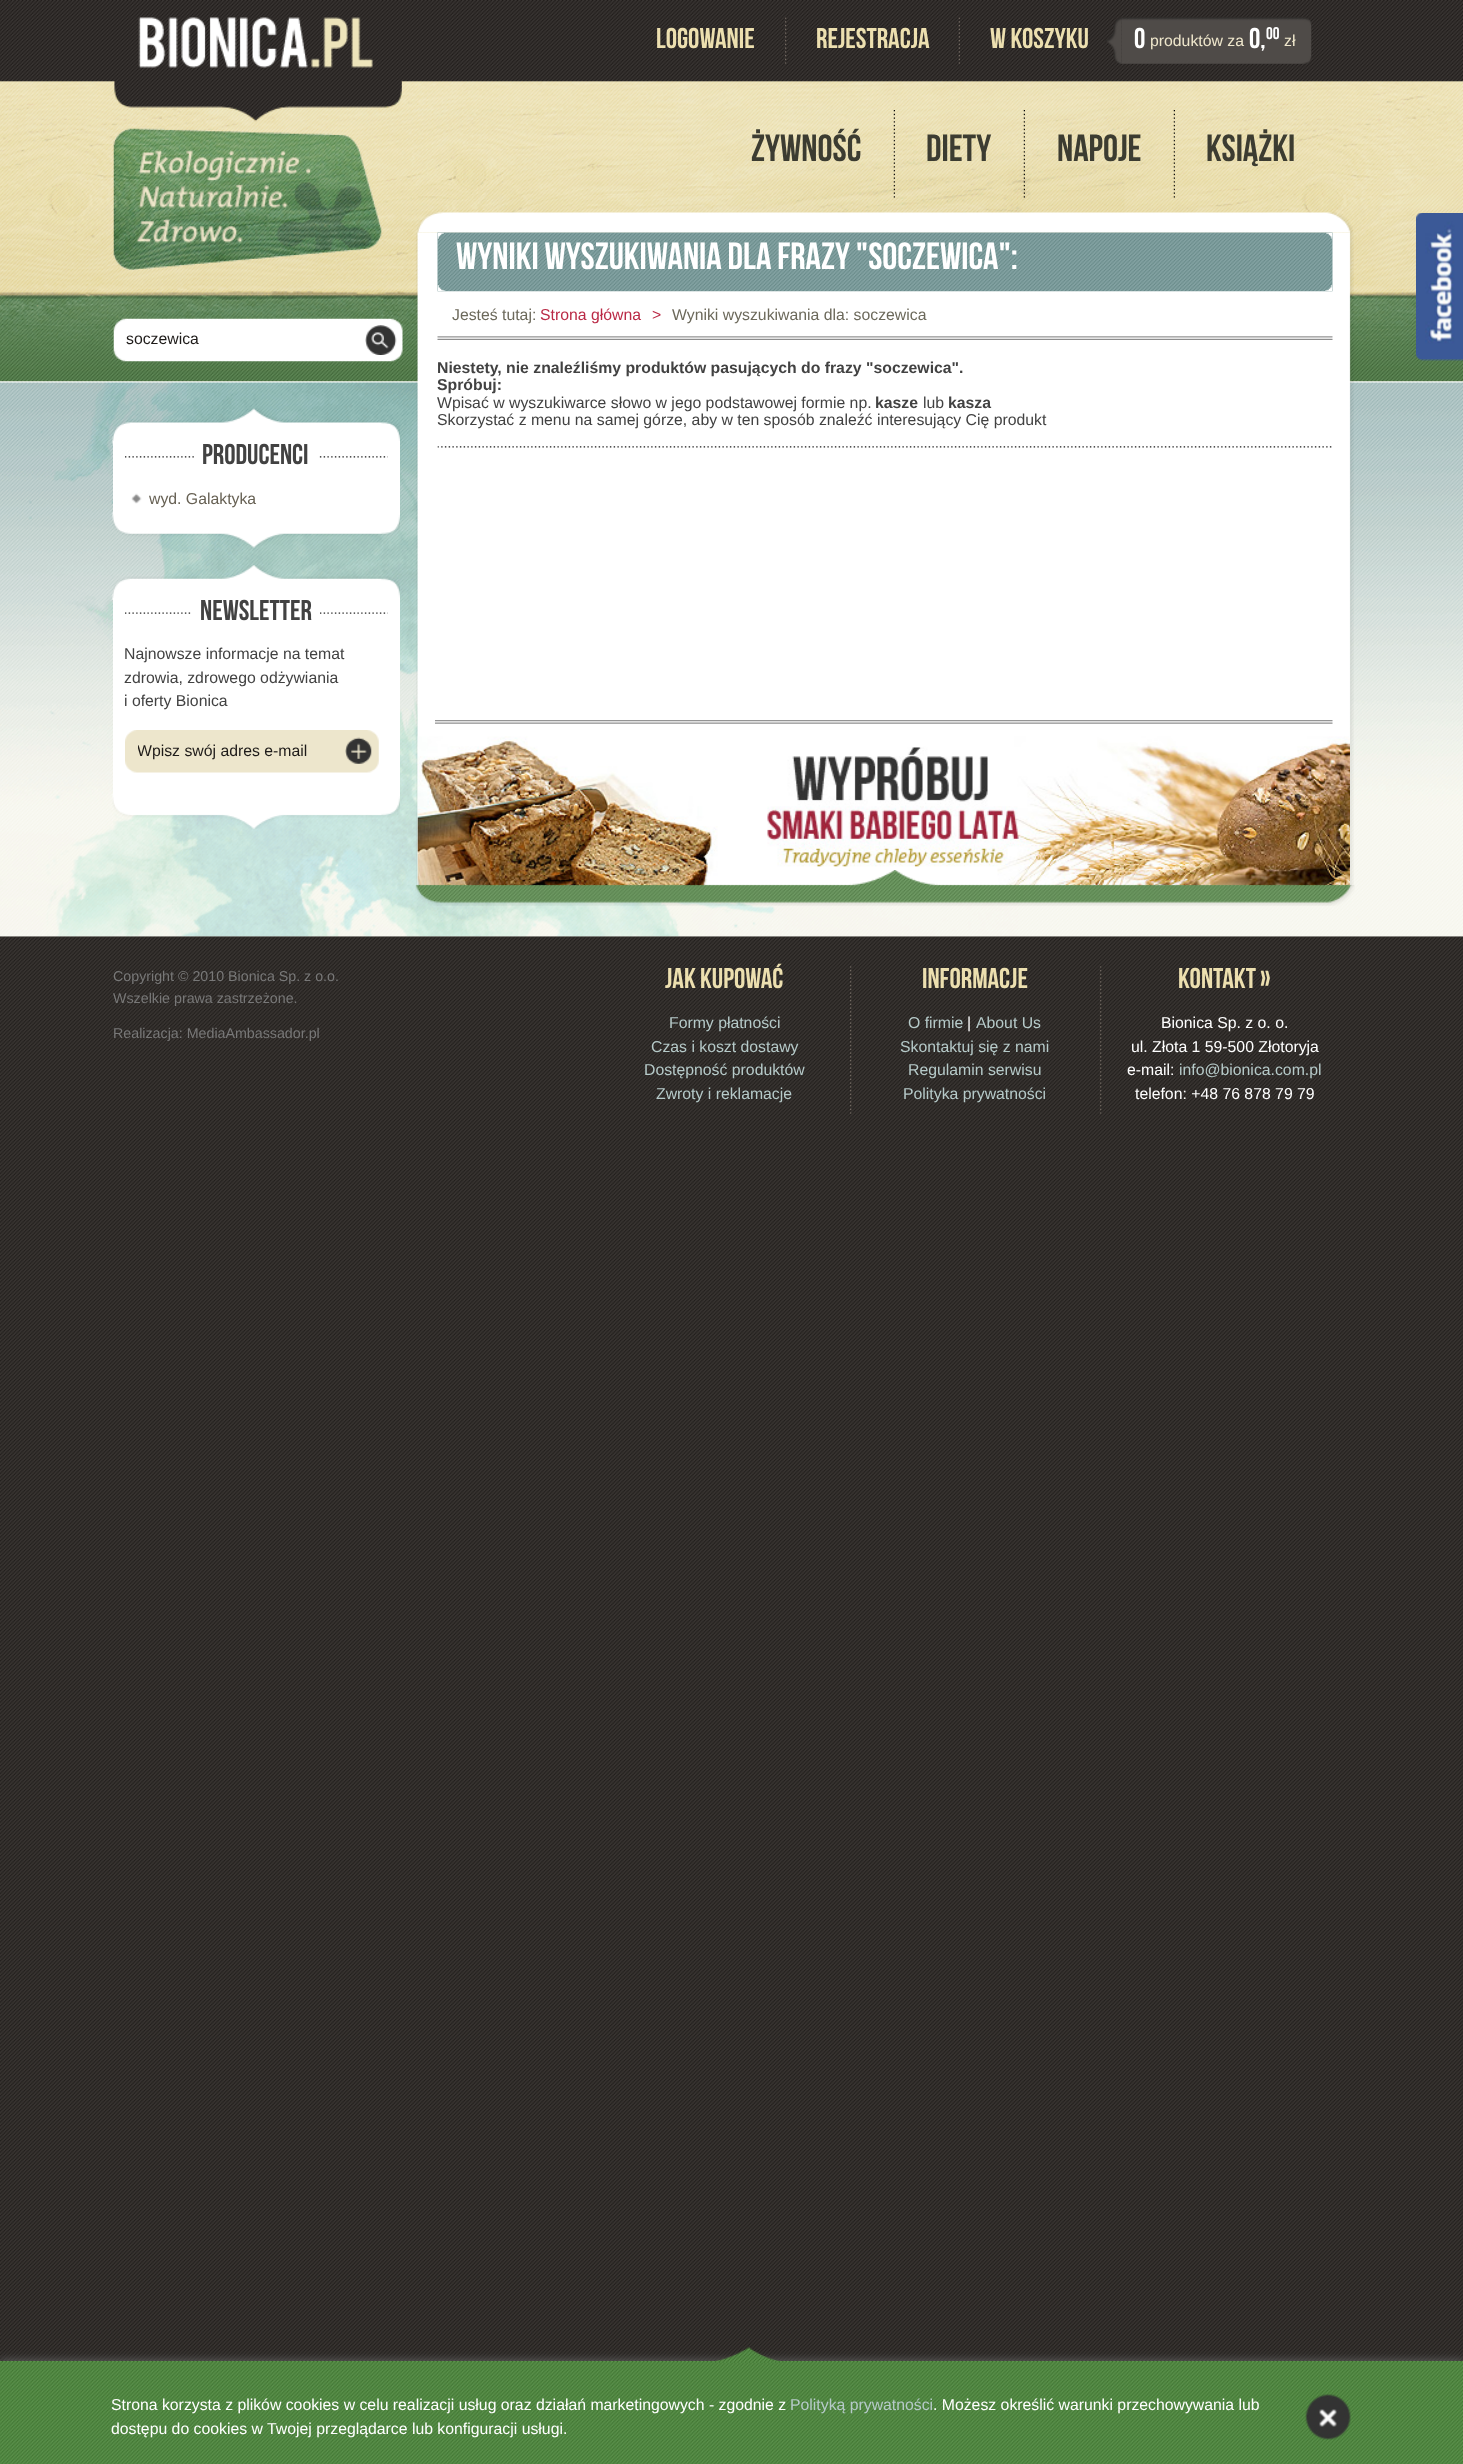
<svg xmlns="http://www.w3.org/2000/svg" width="1463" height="2464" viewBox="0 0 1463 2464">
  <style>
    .t1 { font: 28.5px Bebas Neue; fill: #ecdfaf; }
    .t2 { font: 28.5px Bebas Neue; fill: #fff; }
    .t3 { font: 15.8px Liberation Sans; fill: #efe7cc; }
    .t4 { font: 17px Bebas Neue; fill: #fff; }
    .t5 { font: 37.9px Bebas Neue; fill: #3c3c31; }
    .t6 { font: 15.8px Liberation Sans; fill: #1e1b19; }
    .t7 { font: 37.9px Bebas Neue; fill: #fff; }
    .t8 { font: 15.8px Liberation Sans; fill: #6c695b; }
    .t9 { font: 15.8px Liberation Sans; fill: #ba2a46; }
    .t10 { font: bold 15.8px Liberation Sans; fill: #424242; }
    .t11 { font: 15.8px Liberation Sans; fill: #424242; }
    .t12 { font: 28.5px Bebas Neue; fill: #424242; }
    .t13 { font: 15.8px Liberation Sans; fill: #676154; }
    .t14 { font: 14.25px Liberation Sans; fill: #787878; }
    .t15 { font: 15.8px Liberation Sans; fill: #b6cac9; }
    .t16 { font: 15.8px Liberation Sans; fill: #fff; }
  </style>
  <defs>
    <clipPath id="clip1"><rect x="138" y="736" width="191" height="30"/></clipPath>
  </defs>
  <rect width="100%" height="100%" fill="#fff"/>
  <image x="0" y="381" width="1463" height="1980" href="images/1.png"/>
  <image x="0" y="381" width="1463" height="1" href="images/2.png"/>
  <image x="0" y="381" width="1463" height="556" href="images/16.png"/>
  <image x="0" y="381" width="1463" height="1" href="images/17.png"/>
  <image x="0" y="381" width="1463" height="556" href="images/18.png"/>
  <image x="0" y="0" width="1463" height="382" href="images/3.png"/>
  <image x="138" y="17" width="235" height="51" href="images/4.png"/>
  <image x="785" y="17" width="2" height="47" href="images/5.png"/>
  <text x="656" y="48" class="t1">LOGOWANIE</text>
  <image x="958" y="17" width="2" height="47" href="images/6.png"/>
  <text x="816" y="48" class="t1">REJESTRACJA</text>
  <text x="990" y="48" class="t1">W KOSZYKU</text>
  <image x="1105" y="18" width="17" height="46" href="images/7.png"/>
  <image x="1121" y="17" width="191" height="47" href="images/8.png"/>
  <text x="1134" y="48" class="t2">0</text>
  <text x="1150" y="46" class="t3">produktów za</text>
  <text x="1249" y="48" class="t2">0,</text>
  <text x="1266" y="39" class="t4">00</text>
  <text x="1284" y="46" class="t3">zł</text>
  <image x="113" y="128" width="269" height="142" href="images/9.png"/>
  <text x="751" y="161" class="t5">ŻYWNOŚĆ</text>
  <image x="893" y="110" width="2" height="88" href="images/10.png"/>
  <text x="926" y="161" class="t5">DIETY</text>
  <image x="1023" y="110" width="2" height="88" href="images/11.png"/>
  <text x="1057" y="161" class="t5">NAPOJE</text>
  <image x="1173" y="110" width="2" height="88" href="images/12.png"/>
  <text x="1206" y="161" class="t5">KSIĄŻKI</text>
  <image x="113" y="318" width="290" height="44" href="images/13.png"/>
  <text x="126" y="344" class="t6">soczewica</text>
  <image x="365" y="325" width="32" height="30" href="images/14.png"/>
  <image x="1416" y="213" width="47" height="148" href="images/15.png"/>
  <image x="417" y="212" width="936" height="21" href="images/19.png"/>
  <image x="416" y="232" width="938" height="488" href="images/20.png"/>
  <image x="437" y="232" width="896" height="60" href="images/21.png"/>
  <image x="437" y="285" width="896" height="6" href="images/22.png"/>
  <image x="437" y="232" width="896" height="7" href="images/23.png"/>
  <text x="456" y="269" class="t7">Wyniki wyszukiwania dla frazy "soczewica":</text>
  <image x="437" y="336" width="896" height="4" href="images/24.png"/>
  <text x="452" y="320" class="t8">Jesteś tutaj:</text>
  <text x="540" y="320" class="t9">Strona główna</text>
  <text x="652" y="320" class="t9">&gt;</text>
  <text x="672" y="320" class="t8">Wyniki wyszukiwania dla: soczewica</text>
  <image x="437" y="446" width="895" height="2" href="images/25.png"/>
  <text x="437" y="373" class="t10">Niestety, nie znaleźliśmy produktów pasujących do frazy "soczewica".</text>
  <text x="437" y="390" class="t10">Spróbuj:</text>
  <text x="437" y="408" class="t11">Wpisać w wyszukiwarce słowo w jego podstawowej formie np.</text>
  <text x="875" y="408" class="t10">kasze</text>
  <text x="923" y="408" class="t11">lub</text>
  <text x="948" y="408" class="t10">kasza</text>
  <text x="437" y="425" class="t11">Skorzystać z menu na samej górze, aby w ten sposób znaleźć interesujący Cię produkt</text>
  <image x="416" y="720" width="938" height="167" href="images/26.png"/>
  <image x="435" y="720" width="898" height="4" href="images/27.png"/>
  <image x="417" y="736" width="933" height="151" href="images/28.png"/>
  <image x="415" y="870" width="940" height="36" href="images/29.png"/>
  <image x="112" y="408" width="288" height="36" href="images/30.png"/>
  <image x="112" y="512" width="288" height="36" href="images/31.png"/>
  <rect x="113" y="441" width="287" height="72" fill="#fff"/>
  <image x="125" y="456" width="263" height="2" href="images/32.png"/>
  <rect x="196" y="456" width="122" height="2" fill="#fff"/>
  <text x="202" y="464" class="t12">producenci</text>
  <image x="131" y="493" width="11" height="11" href="images/33.png"/>
  <text x="149" y="504" class="t13">wyd. Galaktyka</text>
  <image x="112" y="565" width="288" height="35" href="images/34.png"/>
  <image x="112" y="793" width="288" height="36" href="images/35.png"/>
  <rect x="113" y="598" width="287" height="196" fill="#fff"/>
  <image x="125" y="612" width="263" height="2" href="images/36.png"/>
  <rect x="192" y="612" width="128" height="2" fill="#fff"/>
  <text x="200" y="620" class="t12">newsletter</text>
  <text x="124" y="659" class="t11">Najnowsze informacje na temat</text>
  <text x="124" y="683" class="t11">zdrowia, zdrowego odżywiania</text>
  <text x="124" y="706" class="t11">i oferty Bionica</text>
  <image x="125" y="730" width="254" height="43" href="images/37.png"/>
  <g clip-path="url(#clip1)">
    <text x="137" y="756" class="t6">Wpisz swój adres e-mail</text>
  </g>
  <image x="345" y="737" width="27" height="27" href="images/38.png"/>
  <text x="113" y="981" class="t14">Copyright © 2010 Bionica Sp. z o.o.</text>
  <text x="113" y="1003" class="t14">Wszelkie prawa zastrzeżone.</text>
  <text x="113" y="1038" class="t14">Realizacja: MediaAmbassador.pl</text>
  <image x="850" y="966" width="252" height="148" href="images/39.png"/>
  <text x="665" y="988" class="t1">Jak kupować</text>
  <text x="669" y="1028" class="t15">Formy płatności</text>
  <text x="651" y="1052" class="t15">Czas i koszt dostawy</text>
  <text x="644" y="1075" class="t15">Dostępność produktów</text>
  <text x="656" y="1099" class="t15">Zwroty i reklamacje</text>
  <text x="922" y="988" class="t1">Informacje</text>
  <text x="908" y="1028" class="t15">O firmie</text>
  <text x="967" y="1028" class="t16">|</text>
  <text x="976" y="1028" class="t15">About Us</text>
  <text x="900" y="1052" class="t15">Skontaktuj się z nami</text>
  <text x="908" y="1075" class="t15">Regulamin serwisu</text>
  <text x="903" y="1099" class="t15">Polityka prywatności</text>
  <text x="1178" y="988" class="t1">Kontakt »</text>
  <text x="1161" y="1028" class="t16">Bionica Sp. z o. o.</text>
  <text x="1131" y="1052" class="t16">ul. Złota 1 59-500 Złotoryja</text>
  <text x="1127" y="1075" class="t16">e-mail:</text>
  <text x="1179" y="1075" class="t15">info@bionica.com.pl</text>
  <text x="1135" y="1099" class="t16">telefon: +48 76 878 79 79</text>
  <rect x="0" y="2360" width="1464" height="104" fill="#646464e6" filter="blur(4.5px)"/>
  <image x="0" y="2361" width="1463" height="103" href="images/40.png"/>
  <image x="711" y="2347" width="73" height="16" href="images/41.png"/>
  <text x="111" y="2410" class="t16">Strona korzysta z plików cookies w celu realizacji usług oraz działań marketingowych - zgodnie z</text>
  <text x="790" y="2410" class="t15">Polityką prywatności</text>
  <text x="933" y="2410" class="t16">. Możesz określić warunki przechowywania lub</text>
  <text x="111" y="2434" class="t16">dostępu do cookies w Twojej przeglądarce lub konfiguracji usługi.</text>
  <image x="1305" y="2394" width="46" height="46" href="images/42.png"/>
</svg>
